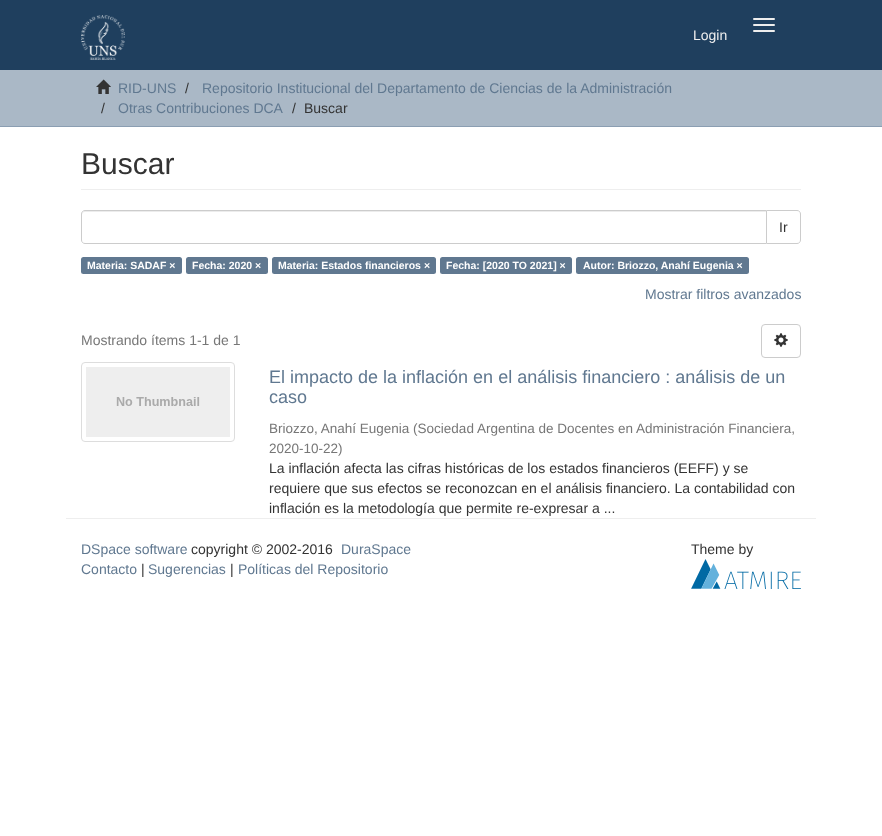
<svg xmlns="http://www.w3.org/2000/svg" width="882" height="836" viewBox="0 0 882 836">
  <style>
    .t1 { font: 14px Liberation Sans; fill: #eee; }
    .t2 { font: 14px Liberation Sans; fill: #607890; }
    .t3 { font: 14px Liberation Sans; fill: #333; }
    .t4 { font: 30px Liberation Sans; fill: #333; }
    .t5 { font: bold 10.5px Liberation Sans; fill: #fff; }
    .t6 { font: 14px Liberation Sans; fill: #777; }
    .t7 { font: 18px Liberation Sans; fill: #607890; }
    .t8 { font: 13.5px Liberation Sans; fill: #777; }
  </style>
  <rect width="100%" height="100%" fill="#fff"/>
  <rect x="0" y="0" width="882" height="70" fill="#1f3f5e"/>
  <image x="81" y="15" width="44" height="45" href="images/1.png"/>
  <rect x="753" y="18" width="22" height="2" rx="1" fill="#eee"/>
  <rect x="753" y="24" width="22" height="2" rx="1" fill="#eee"/>
  <rect x="753" y="30" width="22" height="2" rx="1" fill="#eee"/>
  <text x="693" y="40" class="t1">Login</text>
  <rect x="0" y="70" width="882" height="56" fill="#aab8c6"/>
  <rect x="0" y="126" width="882" height="1" fill="#8b9eb2"/>
  <image x="96" y="79" width="15" height="15" href="images/2.png"/>
  <text x="118" y="93" class="t2">RID-UNS</text>
  <text x="185" y="93" class="t3">/</text>
  <text x="202" y="93" class="t2">Repositorio Institucional del Departamento de Ciencias de la Administración</text>
  <text x="101" y="113" class="t3">/</text>
  <text x="118" y="113" class="t2">Otras Contribuciones DCA</text>
  <text x="292" y="113" class="t3">/</text>
  <text x="304" y="113" class="t3">Buscar</text>
  <rect x="81" y="189" width="720" height="1" fill="#eee"/>
  <text x="81" y="174" class="t4">Buscar</text>
  <path d="M766.5 210.5H797C799 210.5 800.5 212 800.5 214V240C800.5 242 799 243.5 797 243.5H766.5Z" fill="none" stroke="#ccc"/>
  <path d="M85 210H767V244H85C83 244 81 242 81 240V214C81 212 83 210 85 210Z" fill="#fff"/>
  <path d="M85 212H766V211H85C83 211 82 212 82 214V215C82 213 83 212 85 212Z" fill="#ececec"/>
  <path d="M85 210.5H766.5V243.5H85C83 243.5 81.5 242 81.5 240V214C81.5 212 83 210.5 85 210.5Z" fill="none" stroke="#ccc"/>
  <text x="779" y="232" class="t3">Ir</text>
  <rect x="81" y="257" width="101" height="17" rx="2.5" fill="#607890"/>
  <text x="87" y="269" class="t5">Materia: SADAF ×</text>
  <rect x="186" y="257" width="82" height="17" rx="2.5" fill="#607890"/>
  <text x="192" y="269" class="t5">Fecha: 2020 ×</text>
  <rect x="272" y="257" width="164" height="17" rx="2.5" fill="#607890"/>
  <text x="278" y="269" class="t5">Materia: Estados financieros ×</text>
  <rect x="440" y="257" width="132" height="17" rx="2.5" fill="#607890"/>
  <text x="446" y="269" class="t5">Fecha: [2020 TO 2021] ×</text>
  <rect x="576" y="257" width="173" height="17" rx="2.5" fill="#607890"/>
  <text x="583" y="269" class="t5">Autor: Briozzo, Anahí Eugenia ×</text>
  <text x="645" y="299" class="t2">Mostrar filtros avanzados</text>
  <text x="81" y="345" class="t6">Mostrando ítems 1-1 de 1</text>
  <rect x="761.5" y="324.5" width="39" height="33" rx="3.5" fill="none" stroke="#ccc"/>
  <image x="774" y="333" width="14" height="14" href="images/3.png"/>
  <rect x="81.5" y="362.5" width="153" height="79" rx="3.5" fill="none" stroke="#ddd"/>
  <image x="86" y="367" width="144" height="70" href="images/4.png"/>
  <text x="269" y="383" class="t7">El impacto de la inflación en el análisis financiero : análisis de un</text>
  <text x="269" y="403" class="t7">caso</text>
  <text x="269" y="433" class="t8">Briozzo, Anahí Eugenia (Sociedad Argentina de Docentes en Administración Financiera,</text>
  <text x="269" y="453" class="t8">2020-10-22)</text>
  <text x="269" y="473" class="t3">La inflación afecta las cifras históricas de los estados financieros (EEFF) y se</text>
  <text x="269" y="493" class="t3">requiere que sus efectos se reconozcan en el análisis financiero. La contabilidad con</text>
  <text x="269" y="513" class="t3">inflación es la metodología que permite re-expresar a ...</text>
  <rect x="66" y="518" width="750" height="1" fill="#eee"/>
  <text x="81" y="554" class="t2">DSpace software</text>
  <text x="191" y="554" class="t3">copyright © 2002-2016</text>
  <text x="341" y="554" class="t2">DuraSpace</text>
  <text x="81" y="574" class="t2">Contacto</text>
  <text x="141" y="574" class="t3">|</text>
  <text x="148" y="574" class="t2">Sugerencias</text>
  <text x="230" y="574" class="t3">|</text>
  <text x="238" y="574" class="t2">Políticas del Repositorio</text>
  <text x="691" y="554" class="t3">Theme by</text>
  <image x="691" y="559" width="110" height="30" href="images/5.png"/>
</svg>
